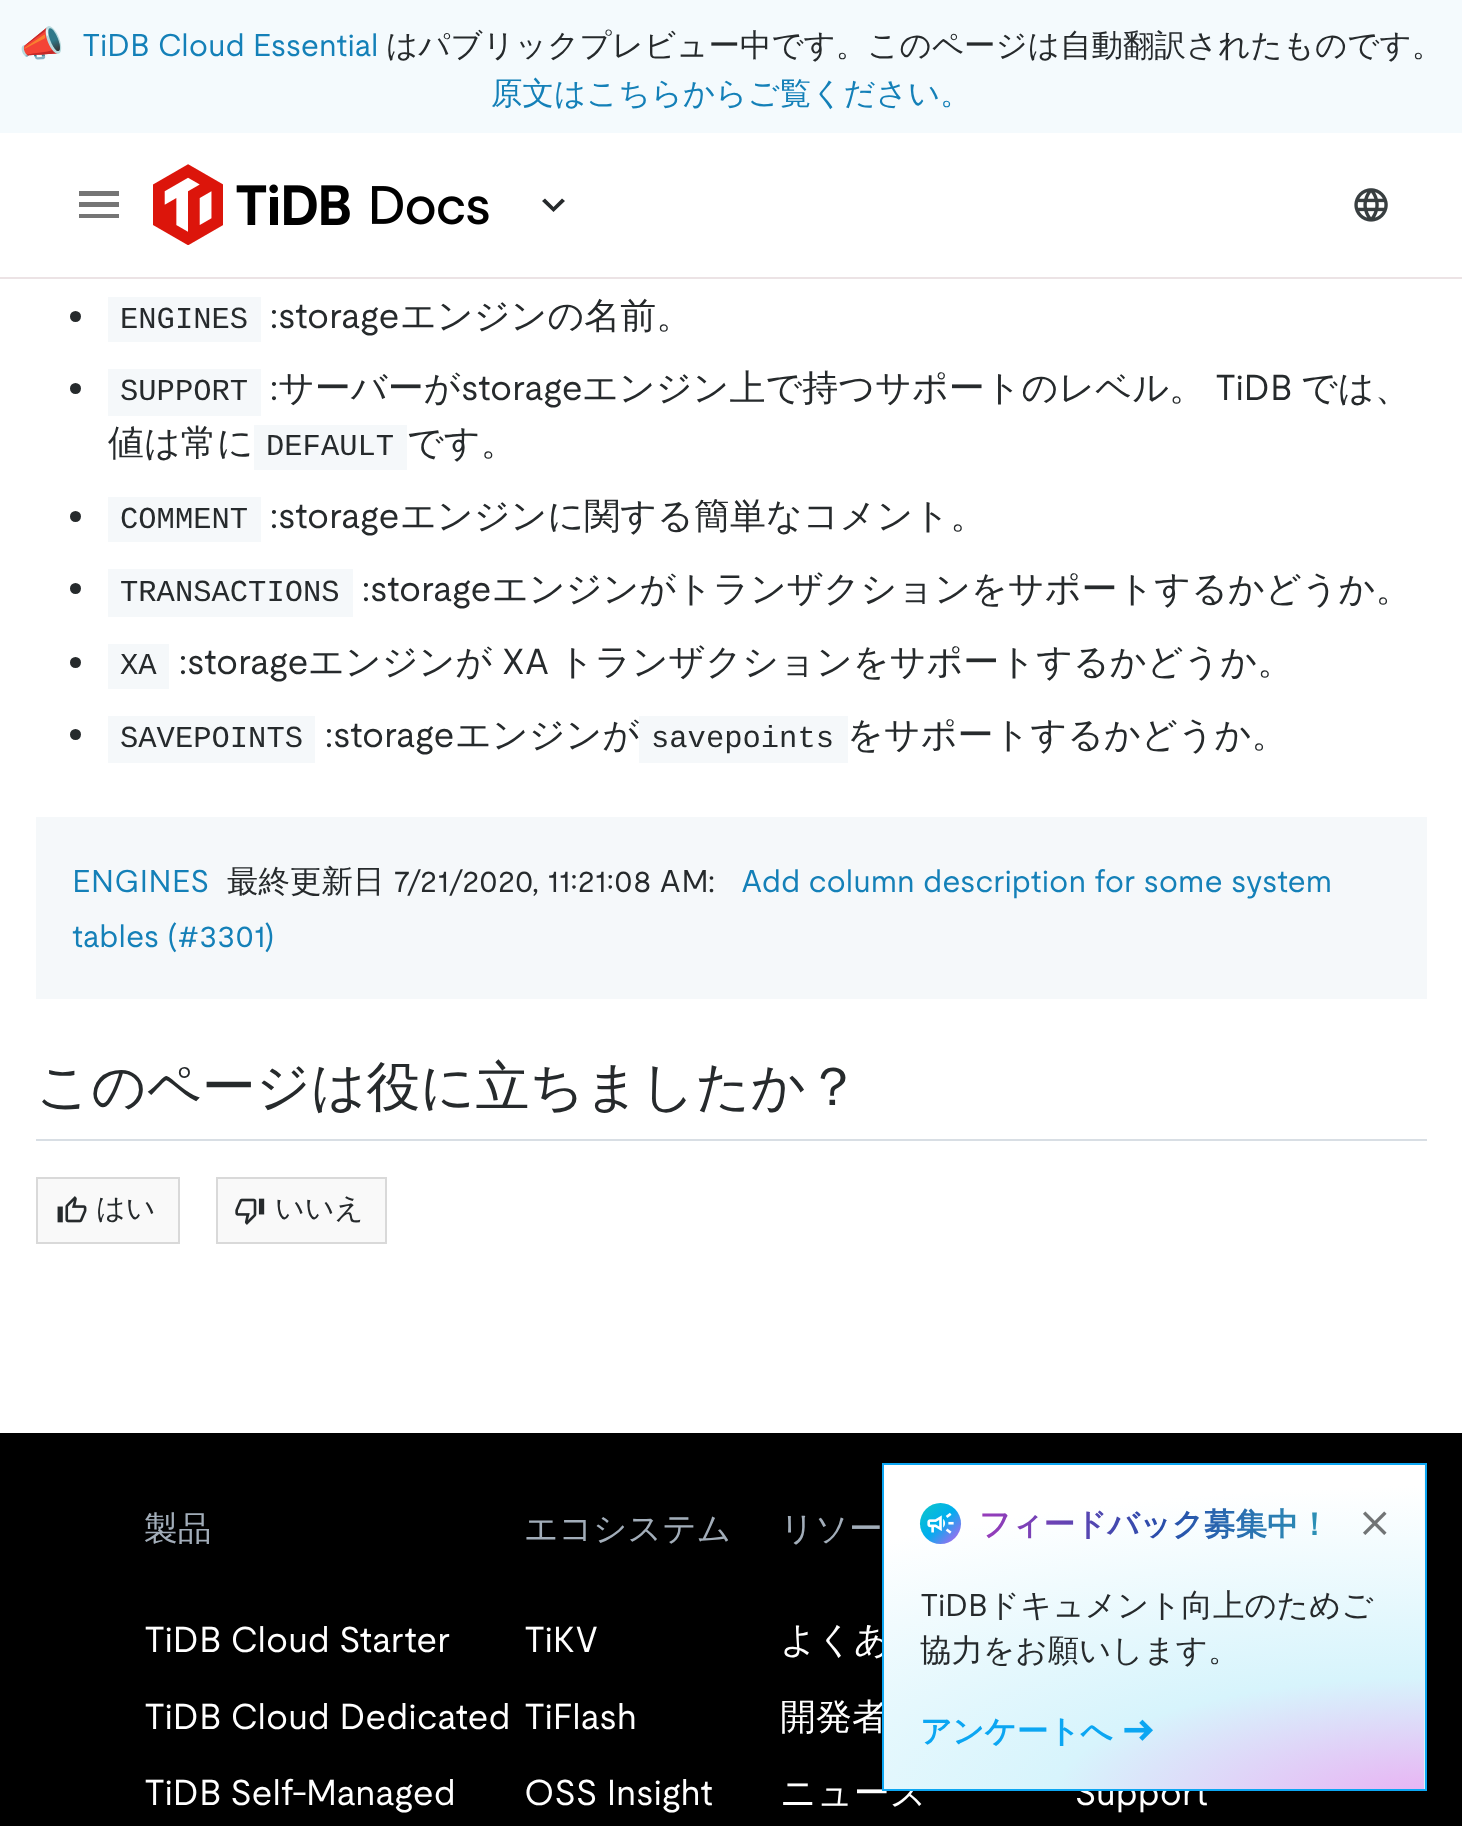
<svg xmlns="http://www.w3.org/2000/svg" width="1462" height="1826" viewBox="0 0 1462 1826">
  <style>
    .t1 { font: 36px Noto Color Emoji; fill: #262a2c; }
    .t2 { font: 31.5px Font; fill: #1480b8; }
    .t3 { font: 500 31.5px WenQuanYi Zen Hei; fill: #262a2c; }
    .t4 { font: 500 31.5px WenQuanYi Zen Hei; fill: #1480b8; }
    .t5 { font: 30.5px Liberation Mono; fill: #262a2c; }
    .t6 { font: 36px Font; fill: #262a2c; }
    .t7 { font: 500 36px WenQuanYi Zen Hei; fill: #262a2c; }
    .t8 { font: 31.5px Font; fill: #262a2c; }
    .t9 { font: 500 54px WenQuanYi Zen Hei; fill: #262a2c; }
    .t10 { font: 500 29px WenQuanYi Zen Hei; fill: #262a2c; }
    .t11 { font: 500 36px WenQuanYi Zen Hei; fill: #fff; }
    .t12 { font: 36px Font; fill: #fff; }
    .t13 { font: bold 31.5px WenQuanYi Zen Hei; fill: url(#g1); }
    .t14 { font: bold 31.5px WenQuanYi Zen Hei; fill: #0ca6f2; }
    .t15 { font: 500 33.75px WenQuanYi Zen Hei; fill: #a2adb9; }
  </style>
  <defs>
    <linearGradient id="g1" gradientUnits="userSpaceOnUse" x1="979" y1="1523" x2="1343" y2="1523"><stop offset="0" stop-color="#9a3cbb"/><stop offset="0.5" stop-color="#284dab"/><stop offset="1" stop-color="#2d9bb7"/></linearGradient>
    <radialGradient id="g2" gradientUnits="userSpaceOnUse" cx="0" cy="0" r="1" gradientTransform="matrix(978 0 0 313 1434 1799)"><stop offset="0" stop-color="#e9b0f3"/><stop offset="0.39" stop-color="#d7f4fc"/><stop offset="1" stop-color="#fff"/></radialGradient>
    <radialGradient id="g3" gradientUnits="userSpaceOnUse" cx="0" cy="0" r="1" gradientTransform="matrix(978 0 0 313 1974 1799)"><stop offset="0" stop-color="#d361e6" stop-opacity="0.5"/><stop offset="0.39" stop-color="#10beeb" stop-opacity="0.17"/><stop offset="1" stop-color="#10beeb" stop-opacity="0"/></radialGradient>
    <linearGradient id="g4" gradientUnits="userSpaceOnUse" x1="920" y1="1503" x2="961" y2="1544"><stop offset="0" stop-color="#0fc7c7"/><stop offset="0.5" stop-color="#00aeef"/><stop offset="1" stop-color="#ca5af0"/></linearGradient>
  </defs>
  <rect width="100%" height="100%" fill="#fff"/>
  <rect x="0" y="0" width="1462" height="133" fill="#f4fafd"/>
  <text x="19" y="56" class="t1">📣</text>
  <text x="82" y="56" class="t2">TiDB Cloud Essential</text>
  <text x="386" y="56" class="t3">はパブリックプレビュー中です。このページは自動翻訳されたものです。</text>
  <text x="491" y="104" class="t4">原文はこちらからご覧ください。</text>
  <rect x="0" y="277" width="1462" height="2" fill="#ece3e5"/>
  <path d="M79 218H119V214H79ZM79 207H119V202H79ZM79 191V196H119V191Z" fill="#757575"/>
  <image x="153" y="164" width="336" height="81" href="images/1.png"/>
  <path d="M545 198.5L553.5 207L562 198.5L565 201L553.5 212L542 201Z" fill="#262a2c"/>
  <image x="1354" y="188" width="34" height="34" href="images/2.png"/>
  <circle cx="75.5" cy="316.5" r="5.5" fill="#262a2c"/>
  <rect x="108" y="297" width="153" height="45" fill="#f5f8fa"/>
  <text x="120" y="328" class="t5">ENGINES</text>
  <text x="270" y="328" class="t6">:storage</text>
  <text x="400" y="328" class="t7">エンジンの名前。</text>
  <circle cx="75.5" cy="388.5" r="5.5" fill="#262a2c"/>
  <rect x="108" y="369" width="153" height="47" fill="#f5f8fa"/>
  <text x="120" y="400" class="t5">SUPPORT</text>
  <text x="270" y="400" class="t6">:</text>
  <text x="278" y="400" class="t7">サーバーが</text>
  <text x="461" y="400" class="t6">storage</text>
  <text x="582" y="400" class="t7">エンジン上で持つサポートのレベル。</text>
  <text x="1215" y="400" class="t6">TiDB</text>
  <text x="1301" y="400" class="t7">では、</text>
  <text x="108" y="455" class="t7">値は常に</text>
  <rect x="254" y="425" width="153" height="45" fill="#f5f8fa"/>
  <text x="266" y="455" class="t5">DEFAULT</text>
  <text x="407" y="455" class="t7">です。</text>
  <circle cx="75.5" cy="516.5" r="5.5" fill="#262a2c"/>
  <rect x="108" y="497" width="153" height="45" fill="#f5f8fa"/>
  <text x="120" y="528" class="t5">COMMENT</text>
  <text x="270" y="528" class="t6">:storage</text>
  <text x="400" y="528" class="t7">エンジンに関する簡単なコメント。</text>
  <circle cx="75.5" cy="588.5" r="5.5" fill="#262a2c"/>
  <rect x="108" y="569" width="245" height="48" fill="#f5f8fa"/>
  <text x="120" y="601" class="t5">TRANSACTIONS</text>
  <text x="362" y="601" class="t6">:storage</text>
  <text x="492" y="601" class="t7">エンジンがトランザクションをサポートするかどうか。</text>
  <circle cx="75.5" cy="662.5" r="5.5" fill="#262a2c"/>
  <rect x="108" y="644" width="61" height="45" fill="#f5f8fa"/>
  <text x="120" y="674" class="t5">XA</text>
  <text x="179" y="674" class="t6">:storage</text>
  <text x="308" y="674" class="t7">エンジンが</text>
  <text x="502" y="674" class="t6">XA</text>
  <text x="558" y="674" class="t7">トランザクションをサポートするかどうか。</text>
  <circle cx="75.5" cy="734.5" r="5.5" fill="#262a2c"/>
  <rect x="108" y="716" width="207" height="47" fill="#f5f8fa"/>
  <text x="120" y="747" class="t5">SAVEPOINTS</text>
  <text x="325" y="747" class="t6">:storage</text>
  <text x="455" y="747" class="t7">エンジンが</text>
  <rect x="639" y="716" width="209" height="47" fill="#f5f8fa"/>
  <text x="651" y="747" class="t5">savepoints</text>
  <text x="847" y="747" class="t7">をサポートするかどうか。</text>
  <rect x="36" y="817" width="1391" height="182" fill="#f5f8fa"/>
  <text x="72" y="892" class="t2">ENGINES</text>
  <text x="227" y="892" class="t3">最終更新日</text>
  <text x="393" y="892" class="t8">7/21/2020, 11:21:08 AM:</text>
  <text x="741" y="892" class="t2">Add column description for some system</text>
  <text x="72" y="947" class="t2">tables (#3301)</text>
  <rect x="36" y="1139" width="1391" height="2" fill="#d8dee4"/>
  <text x="36" y="1105" class="t9">このページは役に立ちましたか？</text>
  <rect x="37" y="1178" width="142" height="65" fill="#f9f9f9" stroke="#d9d9d9" stroke-width="2"/>
  <image x="57" y="1196" width="30" height="27" href="images/3.png"/>
  <text x="96" y="1218" class="t10">はい</text>
  <rect x="217" y="1178" width="169" height="65" fill="#f9f9f9" stroke="#d9d9d9" stroke-width="2"/>
  <image x="235" y="1198" width="30" height="27" href="images/4.png"/>
  <text x="275" y="1218" class="t10">いいえ</text>
  <rect x="0" y="1433" width="1462" height="393" fill="#000"/>
  <rect x="1424" y="1465" width="1" height="324" fill="#fff"/>
  <rect x="882" y="1467" width="545" height="329" fill="#0000000a" filter="blur(4.5px)"/>
  <text x="780" y="1652" class="t11">よくあ</text>
  <text x="780" y="1729" class="t11">開発者</text>
  <text x="780" y="1805" class="t11">ニュース</text>
  <text x="1075" y="1805" class="t12">Support</text>
  <rect x="884" y="1465" width="540" height="324" fill="url(#g2)"/>
  <rect x="1424" y="1570" width="1" height="219" fill="url(#g3)"/>
  <rect x="883" y="1464" width="543" height="326" fill="none" stroke="#0ca6f2" stroke-width="2"/>
  <circle cx="940.5" cy="1523.5" r="20.5" fill="url(#g4)"/>
  <image x="927" y="1512" width="27" height="22" href="images/5.png"/>
  <text x="979" y="1535" class="t13">フィードバック募集中！</text>
  <image x="1363" y="1511" width="24" height="24" href="images/6.png"/>
  <text x="920" y="1616" class="t8">TiDB</text>
  <text x="988" y="1616" class="t3">ドキュメント向上のためご</text>
  <text x="920" y="1661" class="t3">協力をお願いします。</text>
  <text x="920" y="1742" class="t14">アンケートへ</text>
  <image x="1124" y="1719" width="29" height="22" href="images/7.png"/>
  <text x="144" y="1540" class="t15">製品</text>
  <text x="144" y="1652" class="t12">TiDB Cloud Starter</text>
  <text x="144" y="1729" class="t12">TiDB Cloud Dedicated</text>
  <text x="144" y="1805" class="t12">TiDB Self-Managed</text>
  <text x="524" y="1540" class="t15">エコシステム</text>
  <text x="524" y="1652" class="t12">TiKV</text>
  <text x="524" y="1729" class="t12">TiFlash</text>
  <text x="524" y="1805" class="t12">OSS Insight</text>
  <text x="780" y="1540" class="t15">リソー</text>
</svg>
